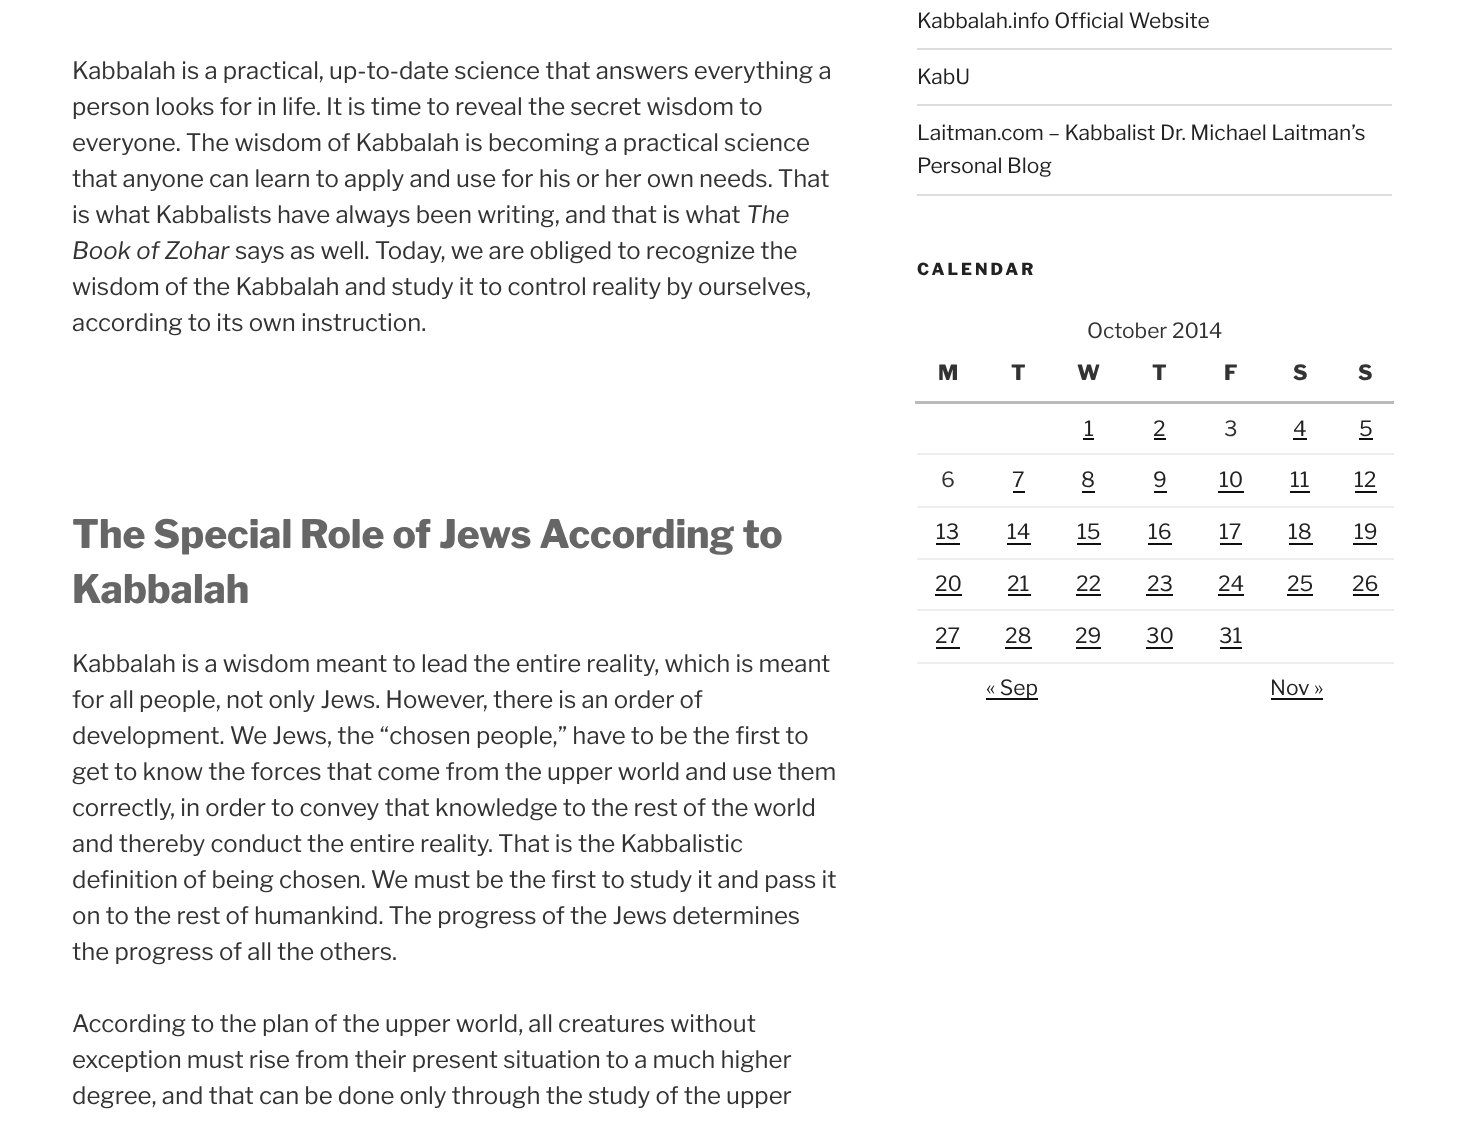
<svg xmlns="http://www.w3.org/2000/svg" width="1463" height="1127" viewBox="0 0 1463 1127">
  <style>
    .t1 { font: 100 24px Libre Franklin; fill: #333; }
    .t2 { font: italic 100 24px Libre Franklin; fill: #333; }
    .t3 { font: 100 39px 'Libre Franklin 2'; fill: #666; }
    .t4 { font: 100 21px Libre Franklin; fill: #222; }
    .t5 { font: 100 16.5px 'Libre Franklin 2'; letter-spacing: 3px; fill: #222; }
    .t6 { font: 100 21px Libre Franklin; fill: #333; }
    .t7 { font: 100 21px 'Libre Franklin 2'; fill: #333; }
  </style>
  <rect width="100%" height="100%" fill="#fff"/>
  <text x="72" y="79" class="t1">Kabbalah is a practical, up-to-date science that answers everything a</text>
  <text x="72" y="115" class="t1">person looks for in life. It is time to reveal the secret wisdom to</text>
  <text x="72" y="151" class="t1">everyone. The wisdom of Kabbalah is becoming a practical science</text>
  <text x="72" y="187" class="t1">that anyone can learn to apply and use for his or her own needs. That</text>
  <text x="72" y="223" class="t1">is what Kabbalists have always been writing, and that is what</text>
  <text x="746" y="223" class="t2">The</text>
  <text x="72" y="259" class="t2">Book of Zohar</text>
  <text x="235" y="259" class="t1">says as well. Today, we are obliged to recognize the</text>
  <text x="72" y="295" class="t1">wisdom of the Kabbalah and study it to control reality by ourselves,</text>
  <text x="72" y="331" class="t1">according to its own instruction.</text>
  <text x="72" y="548" class="t3">The Special Role of Jews According to</text>
  <text x="72" y="603" class="t3">Kabbalah</text>
  <text x="72" y="672" class="t1">Kabbalah is a wisdom meant to lead the entire reality, which is meant</text>
  <text x="72" y="708" class="t1">for all people, not only Jews. However, there is an order of</text>
  <text x="72" y="744" class="t1">development. We Jews, the “chosen people,” have to be the first to</text>
  <text x="72" y="780" class="t1">get to know the forces that come from the upper world and use them</text>
  <text x="72" y="816" class="t1">correctly, in order to convey that knowledge to the rest of the world</text>
  <text x="72" y="852" class="t1">and thereby conduct the entire reality. That is the Kabbalistic</text>
  <text x="72" y="888" class="t1">definition of being chosen. We must be the first to study it and pass it</text>
  <text x="72" y="924" class="t1">on to the rest of humankind. The progress of the Jews determines</text>
  <text x="72" y="960" class="t1">the progress of all the others.</text>
  <text x="72" y="1032" class="t1">According to the plan of the upper world, all creatures without</text>
  <text x="72" y="1068" class="t1">exception must rise from their present situation to a much higher</text>
  <text x="72" y="1104" class="t1">degree, and that can be done only through the study of the upper</text>
  <rect x="917" y="48" width="475" height="2" fill="#ddd"/>
  <text x="917" y="28" class="t4">Kabbalah.info Official Website</text>
  <rect x="917" y="104" width="475" height="2" fill="#ddd"/>
  <text x="917" y="84" class="t4">KabU</text>
  <rect x="917" y="194" width="475" height="2" fill="#ddd"/>
  <text x="917" y="140" class="t4">Laitman.com – Kabbalist Dr. Michael Laitman’s</text>
  <text x="917" y="173" class="t4">Personal Blog</text>
  <text x="917" y="275" class="t5">CALENDAR</text>
  <text x="1087" y="338" class="t6">October 2014</text>
  <text x="938" y="380" class="t7">M</text>
  <text x="1011" y="380" class="t7">T</text>
  <text x="1077" y="380" class="t7">W</text>
  <text x="1152" y="380" class="t7">T</text>
  <text x="1224" y="380" class="t7">F</text>
  <text x="1293" y="380" class="t7">S</text>
  <rect x="915" y="401" width="479" height="3" fill="#bbb"/>
  <text x="1358" y="380" class="t7">S</text>
  <rect x="917" y="453" width="477" height="2" fill="#eee"/>
  <text x="1084" y="436" class="t4">1</text>
  <rect x="1083" y="438" width="11" height="2" fill="#0f0f0f"/>
  <text x="1153" y="436" class="t4">2</text>
  <rect x="1154" y="438" width="12" height="2" fill="#0f0f0f"/>
  <text x="1224" y="436" class="t6">3</text>
  <text x="1293" y="436" class="t4">4</text>
  <rect x="1293" y="438" width="14" height="2" fill="#0f0f0f"/>
  <text x="1359" y="436" class="t4">5</text>
  <rect x="1359" y="438" width="14" height="2" fill="#0f0f0f"/>
  <rect x="917" y="506" width="477" height="2" fill="#eee"/>
  <text x="941" y="487" class="t6">6</text>
  <text x="1012" y="487" class="t4">7</text>
  <rect x="1013" y="491" width="12" height="2" fill="#0f0f0f"/>
  <text x="1081" y="487" class="t4">8</text>
  <rect x="1082" y="491" width="13" height="2" fill="#0f0f0f"/>
  <text x="1153" y="487" class="t4">9</text>
  <rect x="1154" y="491" width="13" height="2" fill="#0f0f0f"/>
  <text x="1219" y="487" class="t4">10</text>
  <rect x="1218" y="491" width="26" height="2" fill="#0f0f0f"/>
  <text x="1290" y="487" class="t4">11</text>
  <rect x="1290" y="491" width="20" height="2" fill="#0f0f0f"/>
  <text x="1354" y="487" class="t4">12</text>
  <rect x="1355" y="491" width="22" height="2" fill="#0f0f0f"/>
  <rect x="917" y="558" width="477" height="2" fill="#eee"/>
  <text x="936" y="539" class="t4">13</text>
  <rect x="936" y="543" width="24" height="2" fill="#0f0f0f"/>
  <text x="1007" y="539" class="t4">14</text>
  <rect x="1007" y="543" width="24" height="2" fill="#0f0f0f"/>
  <text x="1077" y="539" class="t4">15</text>
  <rect x="1077" y="543" width="24" height="2" fill="#0f0f0f"/>
  <text x="1148" y="539" class="t4">16</text>
  <rect x="1148" y="543" width="24" height="2" fill="#0f0f0f"/>
  <text x="1219" y="539" class="t4">17</text>
  <rect x="1220" y="543" width="22" height="2" fill="#0f0f0f"/>
  <text x="1288" y="539" class="t4">18</text>
  <rect x="1289" y="543" width="24" height="2" fill="#0f0f0f"/>
  <text x="1354" y="539" class="t4">19</text>
  <rect x="1353" y="543" width="24" height="2" fill="#0f0f0f"/>
  <rect x="917" y="609" width="477" height="2" fill="#eee"/>
  <text x="935" y="591" class="t4">20</text>
  <rect x="935" y="594" width="27" height="2" fill="#0f0f0f"/>
  <text x="1007" y="591" class="t4">21</text>
  <rect x="1008" y="594" width="23" height="2" fill="#0f0f0f"/>
  <text x="1076" y="591" class="t4">22</text>
  <rect x="1076" y="594" width="25" height="2" fill="#0f0f0f"/>
  <text x="1147" y="591" class="t4">23</text>
  <rect x="1146" y="594" width="27" height="2" fill="#0f0f0f"/>
  <text x="1218" y="591" class="t4">24</text>
  <rect x="1218" y="594" width="26" height="2" fill="#0f0f0f"/>
  <text x="1287" y="591" class="t4">25</text>
  <rect x="1287" y="594" width="26" height="2" fill="#0f0f0f"/>
  <text x="1352" y="591" class="t4">26</text>
  <rect x="1353" y="594" width="26" height="2" fill="#0f0f0f"/>
  <rect x="917" y="662" width="477" height="2" fill="#eee"/>
  <text x="935" y="643" class="t4">27</text>
  <rect x="936" y="647" width="24" height="2" fill="#0f0f0f"/>
  <text x="1005" y="643" class="t4">28</text>
  <rect x="1005" y="647" width="27" height="2" fill="#0f0f0f"/>
  <text x="1075" y="643" class="t4">29</text>
  <rect x="1076" y="647" width="25" height="2" fill="#0f0f0f"/>
  <text x="1146" y="643" class="t4">30</text>
  <rect x="1146" y="647" width="27" height="2" fill="#0f0f0f"/>
  <text x="1219" y="643" class="t4">31</text>
  <rect x="1220" y="647" width="22" height="2" fill="#0f0f0f"/>
  <rect x="986" y="698" width="52" height="2" fill="#0f0f0f"/>
  <text x="986" y="695" class="t4">« Sep</text>
  <text x="1270" y="695" class="t4">Nov »</text>
  <rect x="1271" y="698" width="52" height="2" fill="#0f0f0f"/>
</svg>
